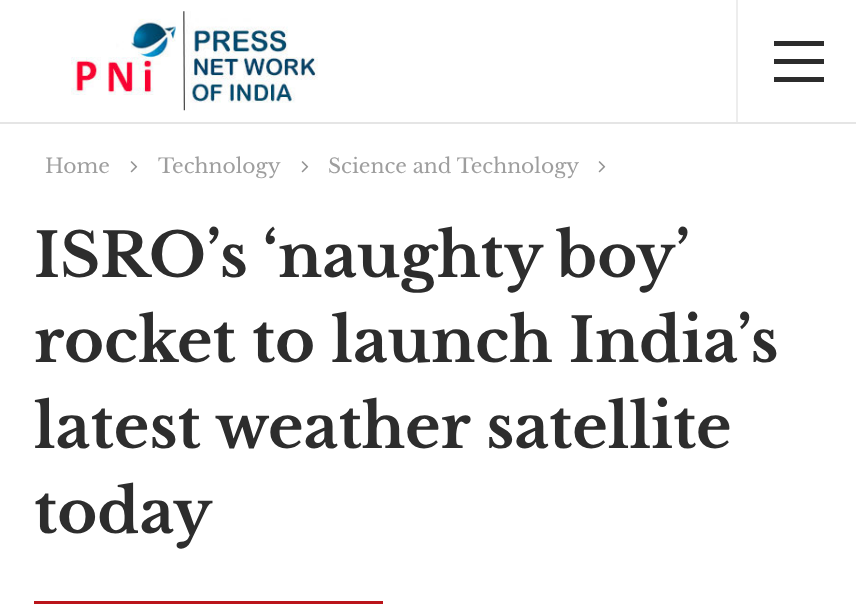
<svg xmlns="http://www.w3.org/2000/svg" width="856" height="604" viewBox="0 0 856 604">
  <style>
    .t1 { font: 20.25px Libre Baskerville; fill: #9e9e9e; }
    .t2 { font: bold 60.75px Libre Baskerville; fill: #2d2d2d; }
  </style>
  <rect width="100%" height="100%" fill="#fff"/>
  <rect x="0" y="122" width="856" height="2" fill="#e5e5e5"/>
  <image x="71" y="11" width="247" height="100" href="images/1.png"/>
  <rect x="736" y="0" width="2" height="122" fill="#ededed"/>
  <rect x="774" y="59" width="50" height="5" fill="#2c2c2c"/>
  <rect x="774" y="41" width="50" height="5" fill="#2c2c2c"/>
  <rect x="774" y="77" width="50" height="5" fill="#2c2c2c"/>
  <text x="45" y="173" class="t1">Home</text>
  <image x="130" y="161" width="8" height="12" href="images/2.png"/>
  <text x="158" y="173" class="t1">Technology</text>
  <image x="301" y="161" width="8" height="12" href="images/2.png"/>
  <text x="328" y="173" class="t1">Science and Technology</text>
  <image x="598" y="161" width="8" height="12" href="images/2.png"/>
  <text x="34" y="277" word-spacing="-1" class="t2">ISRO’s ‘naughty boy’</text>
  <text x="34" y="362" class="t2">rocket to launch India’s</text>
  <text x="34" y="448" class="t2">latest weather satellite</text>
  <text x="34" y="533" class="t2">today</text>
  <rect x="34" y="601" width="349" height="3" fill="#ba141a"/>
</svg>
